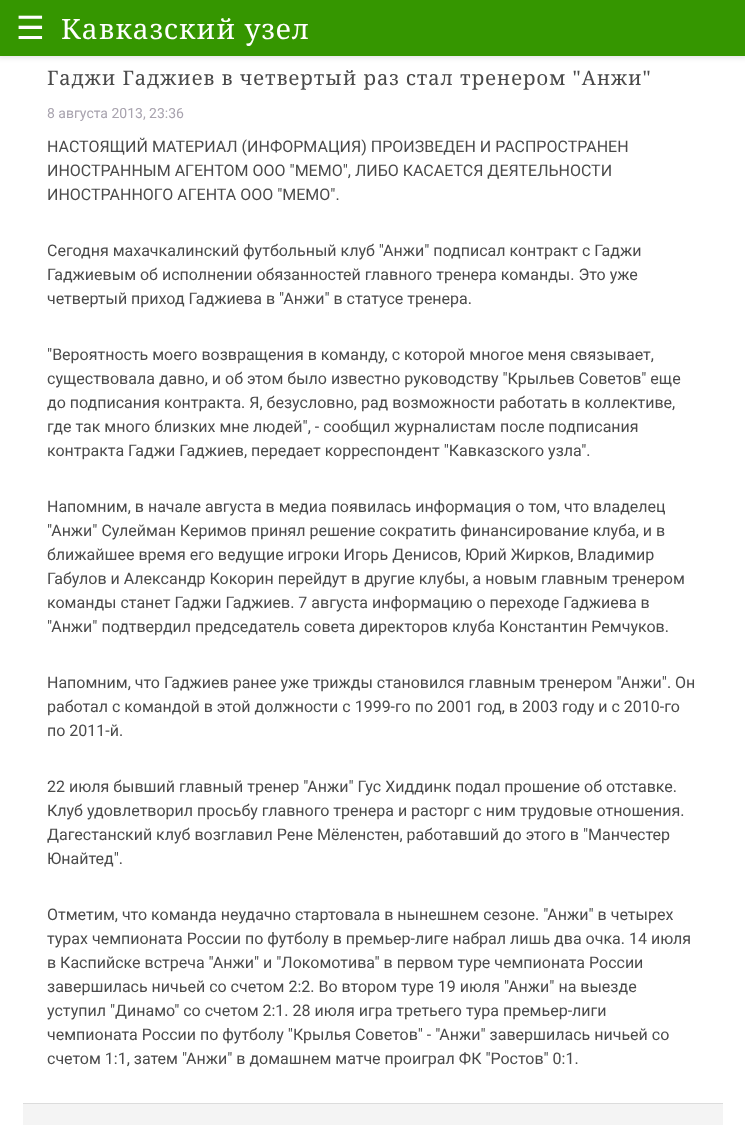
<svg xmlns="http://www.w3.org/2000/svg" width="745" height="1125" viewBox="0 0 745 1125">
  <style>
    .t1 { font: 32px DejaVu Sans; fill: #fff; }
    .t2 { font: 28px Noto Serif; letter-spacing: 1px; fill: #fff; }
    .t3 { font: 20px Noto Serif; letter-spacing: 0.95px; fill: #4a4a4a; }
    .t4 { font: 14px Roboto; fill: #a8a3ae; }
    .t5 { font: 16px Roboto; fill: #4a4a4a; }
  </style>
  <rect width="100%" height="100%" fill="#fff"/>
  <rect x="-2" y="-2" width="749" height="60" fill="#0000001a" filter="blur(2.5px)"/>
  <rect x="0" y="0" width="745" height="56" fill="#359600"/>
  <text x="16" y="39" class="t1">☰</text>
  <text x="61" y="39" class="t2">Кавказский узел</text>
  <text x="47" y="85" class="t3">Гаджи Гаджиев в четвертый раз стал тренером "Анжи"</text>
  <text x="47" y="118" class="t4">8 августа 2013, 23:36</text>
  <text x="47" y="152" class="t5">НАСТОЯЩИЙ МАТЕРИАЛ (ИНФОРМАЦИЯ) ПРОИЗВЕДЕН И РАСПРОСТРАНЕН</text>
  <text x="47" y="176" class="t5">ИНОСТРАННЫМ АГЕНТОМ ООО "МЕМО", ЛИБО КАСАЕТСЯ ДЕЯТЕЛЬНОСТИ</text>
  <text x="47" y="200" class="t5">ИНОСТРАННОГО АГЕНТА ООО "МЕМО".</text>
  <text x="47" y="256" class="t5">Сегодня махачкалинский футбольный клуб "Анжи" подписал контракт с Гаджи</text>
  <text x="47" y="280" class="t5">Гаджиевым об исполнении обязанностей главного тренера команды. Это уже</text>
  <text x="47" y="304" class="t5">четвертый приход Гаджиева в "Анжи" в статусе тренера.</text>
  <text x="47" y="360" class="t5">"Вероятность моего возвращения в команду, с которой многое меня связывает,</text>
  <text x="47" y="384" class="t5">существовала давно, и об этом было известно руководству "Крыльев Советов" еще</text>
  <text x="47" y="408" class="t5">до подписания контракта. Я, безусловно, рад возможности работать в коллективе,</text>
  <text x="47" y="432" class="t5">где так много близких мне людей", - сообщил журналистам после подписания</text>
  <text x="47" y="456" class="t5">контракта Гаджи Гаджиев, передает корреспондент "Кавказского узла".</text>
  <text x="47" y="512" class="t5">Напомним, в начале августа в медиа появилась информация о том, что владелец</text>
  <text x="47" y="536" class="t5">"Анжи" Сулейман Керимов принял решение сократить финансирование клуба, и в</text>
  <text x="47" y="560" class="t5">ближайшее время его ведущие игроки Игорь Денисов, Юрий Жирков, Владимир</text>
  <text x="47" y="584" class="t5">Габулов и Александр Кокорин перейдут в другие клубы, а новым главным тренером</text>
  <text x="47" y="608" class="t5">команды станет Гаджи Гаджиев. 7 августа информацию о переходе Гаджиева в</text>
  <text x="47" y="632" class="t5">"Анжи" подтвердил председатель совета директоров клуба Константин Ремчуков.</text>
  <text x="47" y="688" class="t5">Напомним, что Гаджиев ранее уже трижды становился главным тренером "Анжи". Он</text>
  <text x="47" y="712" class="t5">работал с командой в этой должности с 1999-го по 2001 год, в 2003 году и с 2010-го</text>
  <text x="47" y="736" class="t5">по 2011-й.</text>
  <text x="47" y="792" class="t5">22 июля бывший главный тренер "Анжи" Гус Хиддинк подал прошение об отставке.</text>
  <text x="47" y="816" class="t5">Клуб удовлетворил просьбу главного тренера и расторг с ним трудовые отношения.</text>
  <text x="47" y="840" class="t5">Дагестанский клуб возглавил Рене Мёленстен, работавший до этого в "Манчестер</text>
  <text x="47" y="864" class="t5">Юнайтед".</text>
  <text x="47" y="920" class="t5">Отметим, что команда неудачно стартовала в нынешнем сезоне. "Анжи" в четырех</text>
  <text x="47" y="944" class="t5">турах чемпионата России по футболу в премьер-лиге набрал лишь два очка. 14 июля</text>
  <text x="47" y="968" class="t5">в Каспийске встреча "Анжи" и "Локомотива" в первом туре чемпионата России</text>
  <text x="47" y="992" class="t5">завершилась ничьей со счетом 2:2. Во втором туре 19 июля "Анжи" на выезде</text>
  <text x="47" y="1016" class="t5">уступил "Динамо" со счетом 2:1. 28 июля игра третьего тура премьер-лиги</text>
  <text x="47" y="1040" class="t5">чемпионата России по футболу "Крылья Советов" - "Анжи" завершилась ничьей со</text>
  <text x="47" y="1064" class="t5">счетом 1:1, затем "Анжи" в домашнем матче проиграл ФК "Ростов" 0:1.</text>
  <rect x="23" y="1104" width="700" height="21" fill="#f4f4f4"/>
  <rect x="23" y="1103" width="700" height="1" fill="#dcdcdc"/>
</svg>
